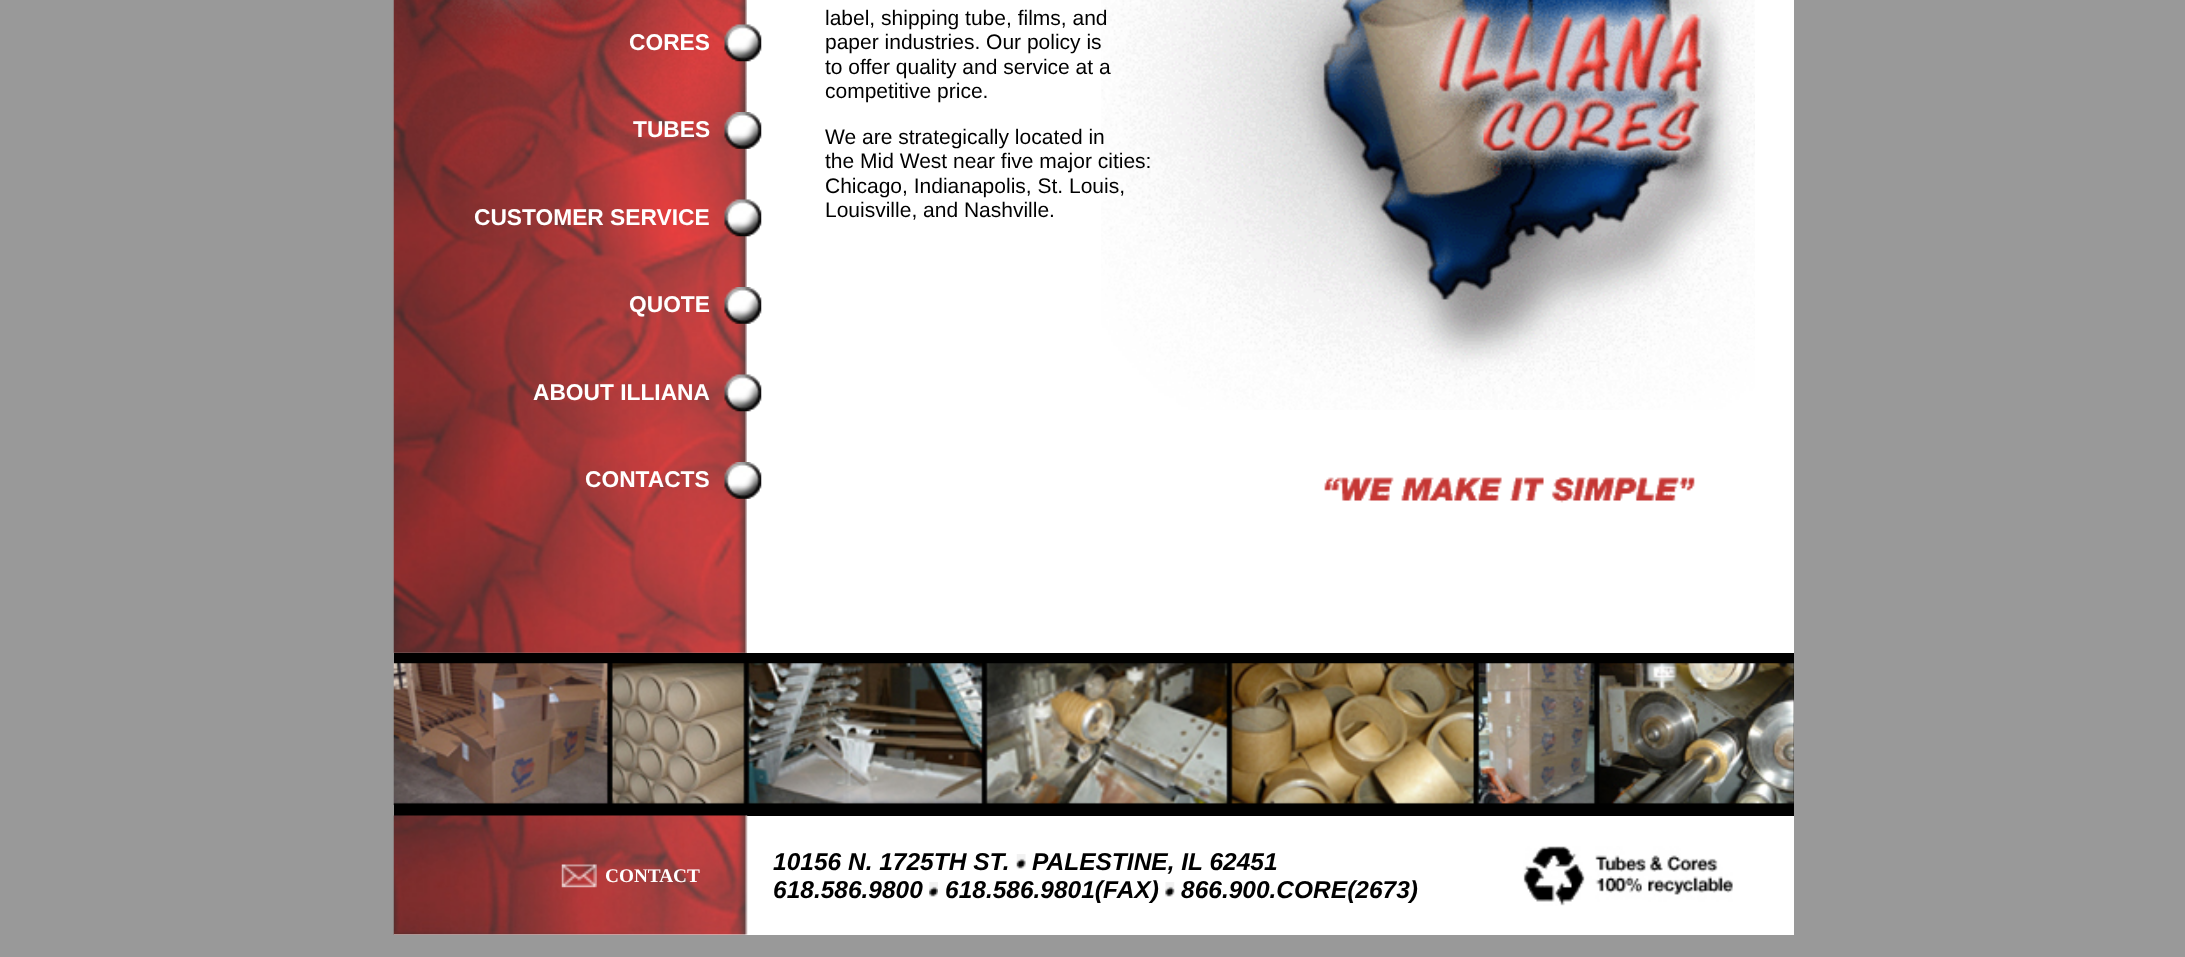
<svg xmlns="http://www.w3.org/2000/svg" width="2185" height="957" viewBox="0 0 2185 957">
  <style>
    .t1 { font: bold 22.75px Liberation Sans; fill: #fff; }
    .t2 { font: 21px Liberation Sans; fill: #000; }
    .t3 { font: bold 19.25px Liberation Serif; fill: #fff; }
    .t4 { font: italic bold 24.5px Liberation Sans; fill: #000; }
  </style>
  <rect width="100%" height="100%" fill="#999"/>
  <image x="393" y="0" width="354" height="653" href="images/1.png"/>
  <text x="629" y="50" class="t1">CORES</text>
  <rect x="747" y="0" width="1047" height="653" fill="#fff"/>
  <image x="724" y="24" width="38" height="38" href="images/2.png"/>
  <text x="633" y="137" class="t1">TUBES</text>
  <image x="724" y="112" width="38" height="37" href="images/3.png"/>
  <text x="474" y="225" class="t1">CUSTOMER SERVICE</text>
  <image x="724" y="199" width="38" height="38" href="images/4.png"/>
  <text x="629" y="312" class="t1">QUOTE</text>
  <image x="724" y="287" width="38" height="37" href="images/5.png"/>
  <text x="533" y="400" class="t1">ABOUT ILLIANA</text>
  <image x="724" y="374" width="38" height="38" href="images/6.png"/>
  <text x="585" y="487" class="t1">CONTACTS</text>
  <image x="724" y="462" width="38" height="37" href="images/7.png"/>
  <image x="1101" y="0" width="654" height="410" href="images/8.png"/>
  <text x="825" y="25" class="t2">label, shipping tube, films, and</text>
  <text x="825" y="49" class="t2">paper industries. Our policy is</text>
  <text x="825" y="74" class="t2">to offer quality and service at a</text>
  <text x="825" y="98" class="t2">competitive price.</text>
  <text x="825" y="144" class="t2">We are strategically located in</text>
  <text x="825" y="168" class="t2">the Mid West near five major cities:</text>
  <text x="825" y="193" class="t2">Chicago, Indianapolis, St. Louis,</text>
  <text x="825" y="217" class="t2">Louisville, and Nashville.</text>
  <image x="1324" y="477" width="371" height="26" href="images/9.png"/>
  <rect x="394" y="653" width="1400" height="163" fill="#000"/>
  <image x="393" y="663" width="1401" height="142" href="images/10.png"/>
  <rect x="394" y="816" width="1400" height="119" fill="#fff"/>
  <image x="393" y="815" width="355" height="120" href="images/11.png"/>
  <image x="561" y="864" width="36" height="24" href="images/12.png"/>
  <text x="605" y="882" class="t3">CONTACT</text>
  <text x="773" y="870" class="t4">10156 N. 1725TH ST.</text>
  <image x="1016" y="854" width="10" height="15" href="images/13.png"/>
  <text x="1032" y="870" class="t4">PALESTINE, IL 62451</text>
  <text x="773" y="898" class="t4">618.586.9800</text>
  <image x="929" y="882" width="9" height="15" href="images/14.png"/>
  <text x="945" y="898" class="t4">618.586.9801(FAX)</text>
  <image x="1165" y="882" width="10" height="15" href="images/15.png"/>
  <text x="1181" y="898" class="t4">866.900.CORE(2673)</text>
  <image x="1523" y="846" width="210" height="60" href="images/16.png"/>
</svg>
